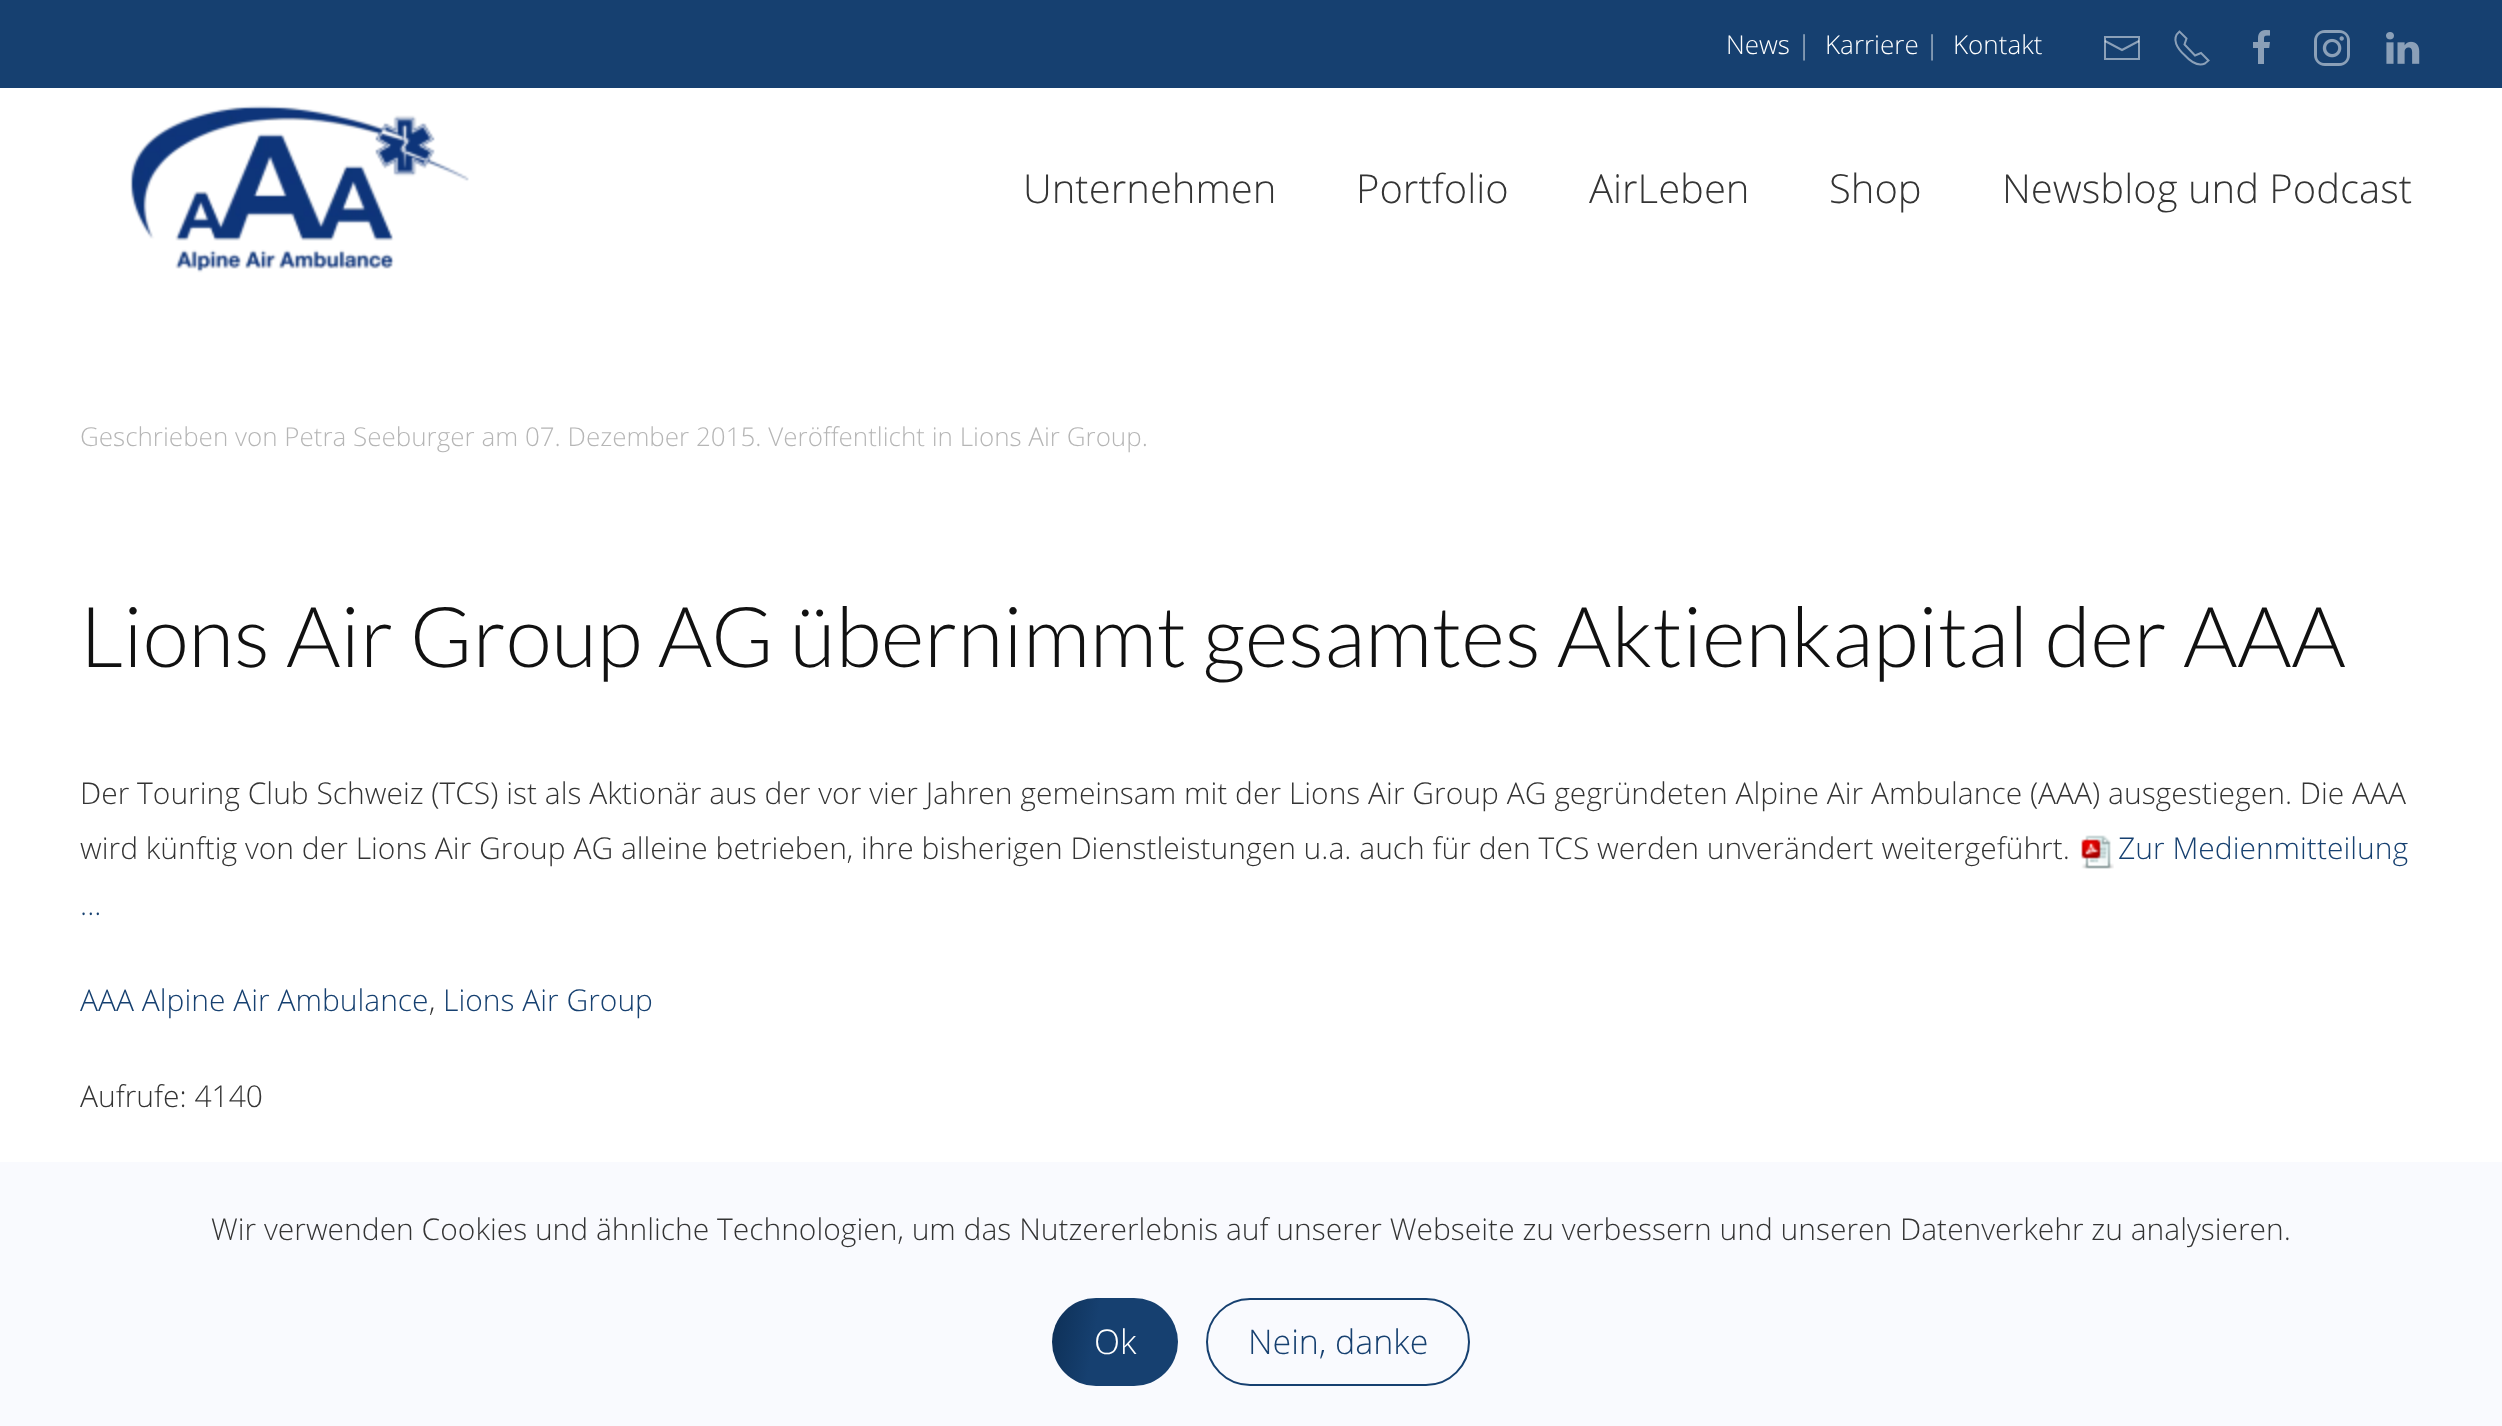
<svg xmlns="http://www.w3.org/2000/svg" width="2502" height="1426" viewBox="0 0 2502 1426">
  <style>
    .t1 { font: 300 26px Open Sans; fill: #fff; }
    .t2 { font: 300 26px Open Sans; fill: #b9c6d4; }
    .t3 { font: 300 40px Open Sans; fill: #343434; }
    .t4 { font: 300 26px Open Sans; fill: #b6b6b6; }
    .t5 { font: 300 84px Lato; fill: #111; }
    .t6 { font: 300 30px Open Sans; fill: #343434; }
    .t7 { font: 300 30px Open Sans; fill: #164070; }
    .t8 { font: 300 34px Open Sans; fill: #fff; }
    .t9 { font: 300 34px Open Sans; fill: #164070; }
  </style>
  <defs>
    <linearGradient id="g1" gradientUnits="userSpaceOnUse" x1="1046" y1="1330" x2="1184" y2="1354"><stop offset="0" stop-color="#0d2f56"/><stop offset="0.35" stop-color="#164070"/><stop offset="1" stop-color="#164070"/></linearGradient>
  </defs>
  <rect width="100%" height="100%" fill="#fff"/>
  <rect x="0" y="0" width="2502" height="88" fill="#164070"/>
  <text x="1726" y="54" class="t1">News</text>
  <text x="1797" y="54" class="t2">|</text>
  <text x="1825" y="54" class="t1">Karriere</text>
  <text x="1925" y="54" class="t2">|</text>
  <text x="1953" y="54" class="t1">Kontakt</text>
  <path d="M2105 41L2122 50L2139 41" fill="none" stroke="#8ba0b8" stroke-width="2"/>
  <path d="M2104 36V60H2140V36ZM2138 58H2106V38H2138Z" fill="#ffffff80"/>
  <path d="M2184.5 55C2189.5 60.5 2197 67 2205 63.5L2208.5 60.5L2201 53L2195 55.5L2184.5 44.5L2186.5 38.5L2179.5 31.5C2170.5 39 2178 49 2184.5 55" fill="none" stroke="#8ba0b8" stroke-width="2"/>
  <image x="2253" y="30" width="17" height="34" href="images/1.png"/>
  <image x="2314" y="30" width="36" height="36" href="images/2.png"/>
  <image x="2386" y="32" width="34" height="32" href="images/3.png"/>
  <image x="130" y="105" width="339" height="168" href="images/4.png"/>
  <text x="1023" y="203" class="t3">Unternehmen</text>
  <text x="1356" y="203" class="t3">Portfolio</text>
  <text x="1589" y="203" class="t3">AirLeben</text>
  <text x="1829" y="203" class="t3">Shop</text>
  <text x="2002" y="203" class="t3">Newsblog und Podcast</text>
  <text x="80" y="446" class="t4">Geschrieben von Petra Seeburger am 07. Dezember 2015. Veröffentlicht in Lions Air Group.</text>
  <text x="80" y="667" class="t5">Lions Air Group AG übernimmt gesamtes Aktienkapital der AAA</text>
  <text x="80" y="804" class="t6">Der Touring Club Schweiz (TCS) ist als Aktionär aus der vor vier Jahren gemeinsam mit der Lions Air Group AG gegründeten Alpine Air Ambulance (AAA) ausgestiegen. Die AAA</text>
  <text x="80" y="859" class="t6">wird künftig von der Lions Air Group AG alleine betrieben, ihre bisherigen Dienstleistungen u.a. auch für den TCS werden unverändert weitergeführt.</text>
  <image x="2081" y="835" width="33" height="34" href="images/5.png"/>
  <text x="2118" y="859" class="t7">Zur Medienmitteilung</text>
  <text x="80" y="915" class="t7">...</text>
  <text x="80" y="1011" class="t7">AAA Alpine Air Ambulance</text>
  <text x="429" y="1011" class="t6">,</text>
  <text x="443" y="1011" class="t7">Lions Air Group</text>
  <text x="80" y="1107" class="t6">Aufrufe: 4140</text>
  <rect x="0" y="1162" width="2502" height="264" fill="#f9fafe"/>
  <text x="211" y="1240" class="t6">Wir verwenden Cookies und ähnliche Technologien, um das Nutzererlebnis auf unserer Webseite zu verbessern und unseren Datenverkehr zu analysieren.</text>
  <rect x="1052" y="1298" width="126" height="88" rx="44" fill="url(#g1)"/>
  <text x="1094" y="1354" class="t8">Ok</text>
  <rect x="1207" y="1299" width="262" height="86" rx="43" fill="none" stroke="#164070" stroke-width="2"/>
  <text x="1248" y="1354" class="t9">Nein, danke</text>
</svg>
